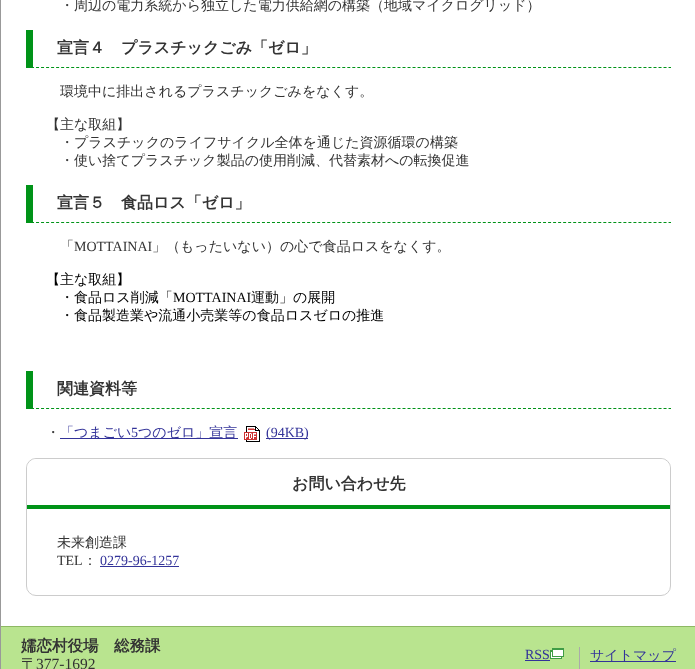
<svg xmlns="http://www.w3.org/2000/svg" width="695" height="669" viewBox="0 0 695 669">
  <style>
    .t1 { font: 500 14px WenQuanYi Zen Hei; fill: #333; }
    .t2 { font: bold 16px WenQuanYi Zen Hei; fill: #333; }
    .t3 { font: 14px Liberation Serif; fill: #333; }
    .t4 { font: 500 14px WenQuanYi Zen Hei; fill: #000; }
    .t5 { font: 14px Liberation Serif; fill: #000; }
    .t6 { font: 500 14px WenQuanYi Zen Hei; fill: #339; }
    .t7 { font: 14px Liberation Serif; fill: #339; }
    .t8 { font: bold 15.5px WenQuanYi Zen Hei; fill: #333; }
    .t9 { font: 500 15.5px WenQuanYi Zen Hei; fill: #333; }
    .t10 { font: 15.5px Liberation Serif; fill: #333; }
  </style>
  <rect width="100%" height="100%" fill="#fff"/>
  <rect x="0.5" y="-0.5" width="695" height="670" fill="none" stroke="#999"/>
  <text x="60" y="10" class="t1">・周辺の電力系統から独立した電力供給網の構築（地域マイクログリッド）</text>
  <path d="M26 67.5H671" fill="none" stroke="#009318" stroke-dasharray="3 2.02"/>
  <rect x="26" y="30" width="7" height="38" fill="#009318"/>
  <text x="57" y="53" class="t2">宣言４　プラスチックごみ「ゼロ」</text>
  <text x="60" y="96" class="t1">環境中に排出されるプラスチックごみをなくす。</text>
  <text x="46" y="129" class="t1">【主な取組】</text>
  <text x="60" y="147" class="t1">・プラスチックのライフサイクル全体を通じた資源循環の構築</text>
  <text x="60" y="165" class="t1">・使い捨てプラスチック製品の使用削減、代替素材への転換促進</text>
  <path d="M26 222.5H671" fill="none" stroke="#009318" stroke-dasharray="3 2.02"/>
  <rect x="26" y="185" width="7" height="38" fill="#009318"/>
  <text x="57" y="208" class="t2">宣言５　食品ロス「ゼロ」</text>
  <text x="60" y="251" class="t1">「</text>
  <text x="74" y="251" class="t3">MOTTAINAI</text>
  <text x="152" y="251" class="t1">」（もったいない）の心で食品ロスをなくす。</text>
  <text x="46" y="284" class="t4">【主な取組】</text>
  <text x="60" y="302" class="t4">・食品ロス削減「</text>
  <text x="173" y="302" class="t5">MOTTAINAI</text>
  <text x="251" y="302" class="t4">運動」の展開</text>
  <text x="60" y="320" class="t4">・食品製造業や流通小売業等の食品ロスゼロの推進</text>
  <path d="M26 408.5H671" fill="none" stroke="#009318" stroke-dasharray="3 2.02"/>
  <rect x="26" y="371" width="7" height="38" fill="#009318"/>
  <text x="57" y="394" class="t2">関連資料等</text>
  <text x="46" y="437" class="t1">・</text>
  <rect x="60" y="438" width="178" height="1" fill="#339"/>
  <text x="60" y="437" class="t6">「つまごい</text>
  <text x="131" y="437" class="t7">5</text>
  <text x="138" y="437" class="t6">つのゼロ」宣言</text>
  <image x="244" y="426" width="16" height="16" href="images/1.png"/>
  <rect x="266" y="438" width="42" height="1" fill="#339"/>
  <text x="266" y="437" class="t7">(94KB)</text>
  <rect x="26.5" y="458.5" width="644" height="137" rx="9.5" fill="none" stroke="#ccc"/>
  <path d="M37 459H660C665.5 459 670 463.5 670 469V509H27V469C27 463.5 31.5 459 37 459Z" fill="#fff"/>
  <rect x="27" y="505" width="643" height="4" fill="#009318"/>
  <text x="292" y="489" class="t2">お問い合わせ先</text>
  <text x="57" y="547" class="t1">未来創造課</text>
  <text x="57" y="565" class="t3">TEL</text>
  <text x="83" y="565" class="t1">：</text>
  <text x="100" y="565" class="t7">0279-96-1257</text>
  <rect x="100" y="566" width="79" height="1" fill="#339"/>
  <rect x="1" y="627" width="694" height="42" fill="#b9e48f"/>
  <rect x="1" y="626" width="694" height="1" fill="#8db863"/>
  <text x="21" y="651" class="t8">嬬恋村役場　総務課</text>
  <text x="21" y="669" class="t9">〒</text>
  <text x="36" y="669" class="t10">377-1692</text>
  <text x="525" y="659" class="t7">RSS</text>
  <rect x="525" y="660" width="25" height="1" fill="#339"/>
  <image x="550" y="648" width="14" height="11" href="images/2.png"/>
  <rect x="579" y="647" width="1" height="22" fill="#aaa"/>
  <rect x="590" y="661" width="86" height="1" fill="#339"/>
  <text x="590" y="660" class="t6">サイトマップ</text>
</svg>
